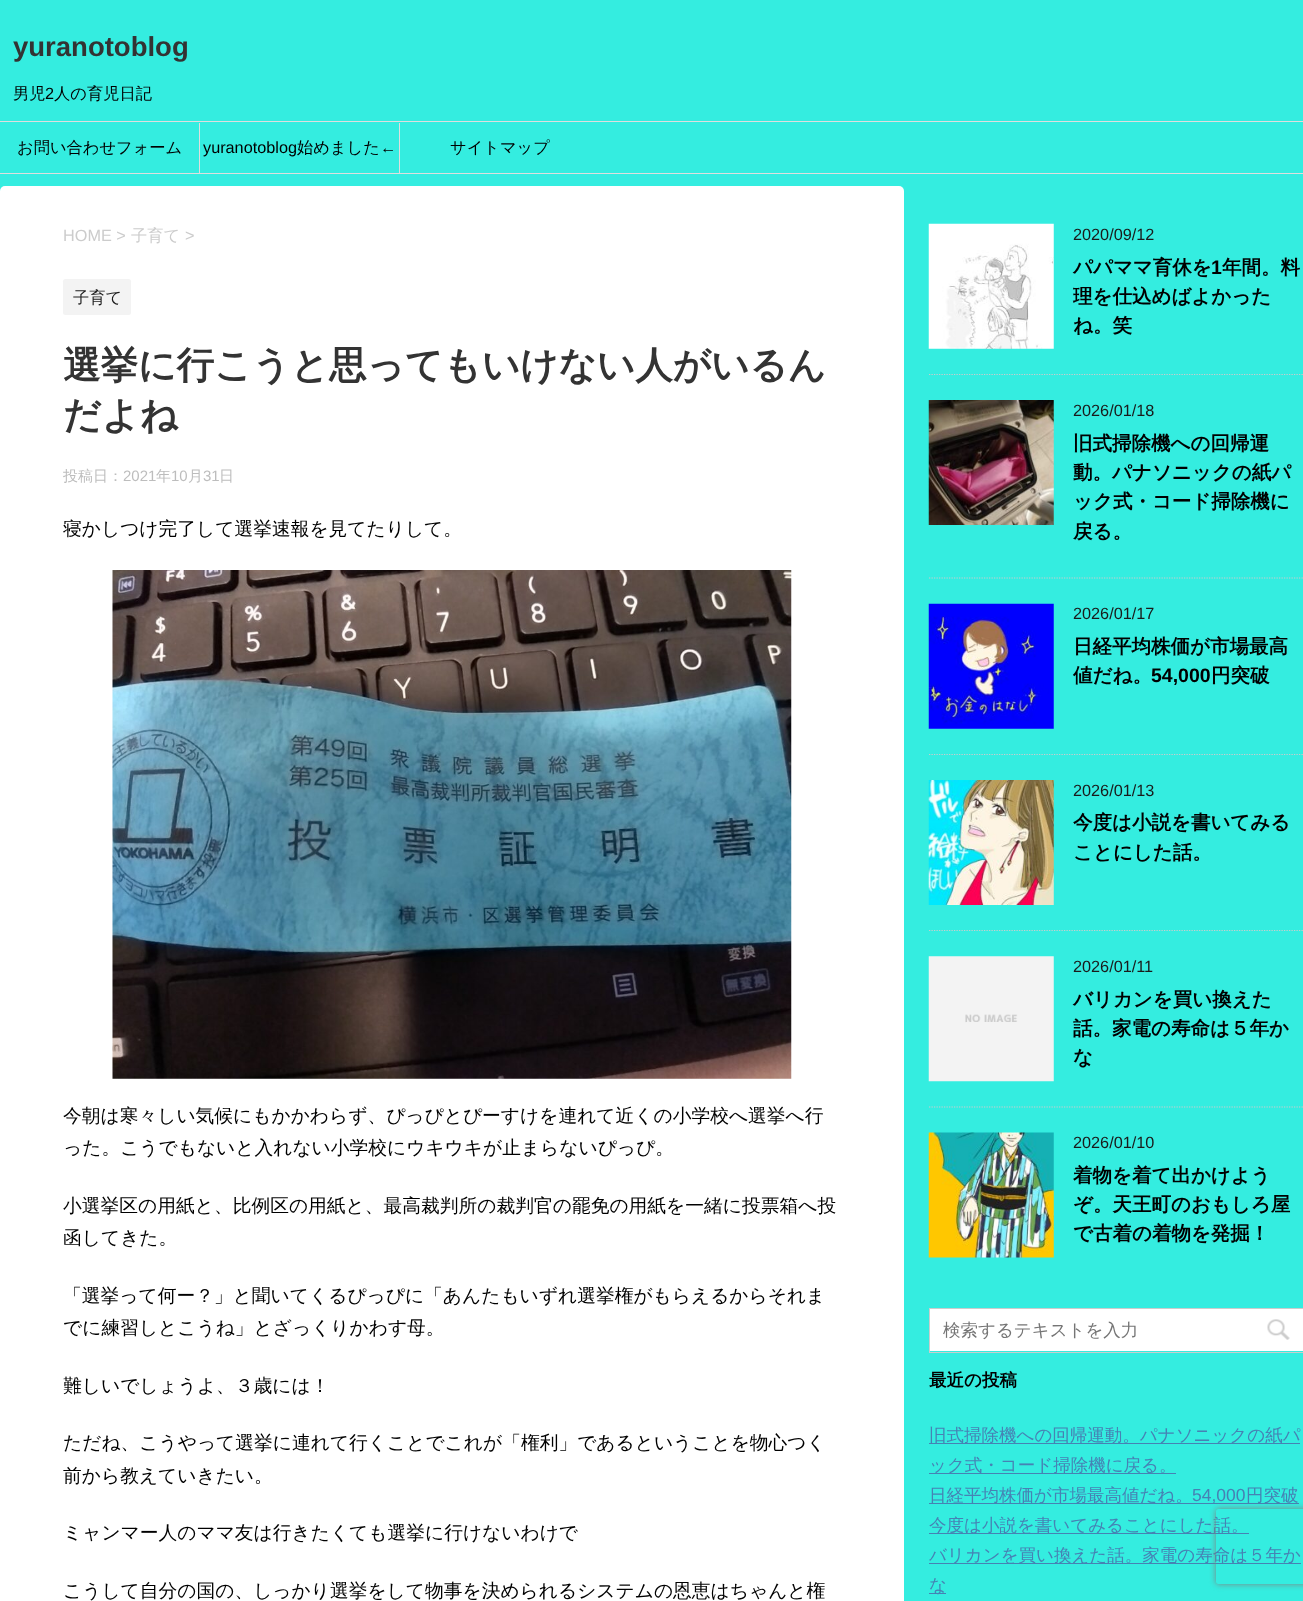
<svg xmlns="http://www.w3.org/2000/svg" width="1303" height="1601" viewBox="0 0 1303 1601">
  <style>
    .t1 { font: bold 27.5px Liberation Sans; fill: #333; }
    .t2 { font: 500 16.25px WenQuanYi Zen Hei; fill: #000; }
    .t3 { font: 16.25px Liberation Sans; fill: #000; }
    .t4 { font: 16.25px Liberation Sans; fill: #ccc; }
    .t5 { font: 500 16.25px WenQuanYi Zen Hei; fill: #ccc; }
    .t6 { font: 500 16.25px WenQuanYi Zen Hei; fill: #1a1a1a; }
    .t7 { font: bold 37.5px WenQuanYi Zen Hei; fill: #333; }
    .t8 { font: 500 15px WenQuanYi Zen Hei; fill: #bdbdbd; }
    .t9 { font: 15px Liberation Sans; fill: #bdbdbd; }
    .t10 { font: 500 18.75px WenQuanYi Zen Hei; fill: #000; }
    .t11 { font: 16.25px Liberation Sans; fill: #1a1a1a; }
    .t12 { font: bold 19.5px WenQuanYi Zen Hei; fill: #000; }
    .t13 { font: bold 19.5px Liberation Sans; fill: #000; }
    .t14 { font: 500 17.5px WenQuanYi Zen Hei; fill: #757575; }
    .t15 { font: bold 17.5px WenQuanYi Zen Hei; fill: #000; }
    .t16 { font: 500 17.5px WenQuanYi Zen Hei; fill: #4682b4; }
    .t17 { font: 17.5px Liberation Sans; fill: #4682b4; }
  </style>
  <defs>
    <clipPath id="clip1"><path d="M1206 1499H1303V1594H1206ZM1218.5 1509H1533.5C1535 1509 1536 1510 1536 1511.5V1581.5C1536 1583 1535 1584 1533.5 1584H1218.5C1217 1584 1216 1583 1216 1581.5V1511.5C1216 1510 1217 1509 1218.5 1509Z" clip-rule="evenodd"/></clipPath>
  </defs>
  <rect width="100%" height="100%" fill="#34ede0"/>
  <text x="13" y="56" class="t1">yuranotoblog</text>
  <text x="13" y="99" class="t2">男児</text>
  <text x="45" y="99" class="t3">2</text>
  <text x="54" y="99" class="t2">人の育児日記</text>
  <rect x="0" y="121" width="1303" height="1" fill="#e0dede"/>
  <rect x="0" y="173" width="1303" height="1" fill="#e0dede"/>
  <rect x="199" y="123" width="1" height="50" fill="#e0dede"/>
  <text x="17" y="153" class="t2">お問い合わせフォーム</text>
  <rect x="399" y="123" width="1" height="50" fill="#e0dede"/>
  <text x="203" y="153" class="t3">yuranotoblog</text>
  <text x="297" y="153" class="t2">始めました</text>
  <text x="380" y="153" class="t3">←</text>
  <text x="450" y="153" class="t2">サイトマップ</text>
  <rect x="0" y="186" width="904" height="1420" rx="5" fill="#fff"/>
  <text x="63" y="241" class="t4">HOME &gt;</text>
  <text x="131" y="241" class="t5">子育て</text>
  <text x="185" y="241" class="t4">&gt;</text>
  <rect x="63" y="279" width="68" height="36" rx="2.5" fill="#f3f3f3"/>
  <text x="73" y="303" class="t6">子育て</text>
  <text x="63" y="378" class="t7">選挙に行こうと思ってもいけない人がいるん</text>
  <text x="63" y="428" class="t7">だよね</text>
  <text x="63" y="481" class="t8">投稿日：</text>
  <text x="123" y="481" class="t9">2021</text>
  <text x="156" y="481" class="t8">年</text>
  <text x="171" y="481" class="t9">10</text>
  <text x="188" y="481" class="t8">月</text>
  <text x="203" y="481" class="t9">31</text>
  <text x="219" y="481" class="t8">日</text>
  <text x="63" y="535" class="t10">寝かしつけ完了して選挙速報を見てたりして。</text>
  <image x="112" y="570" width="680" height="509" href="images/1.png"/>
  <text x="63" y="1122" class="t10">今朝は寒々しい気候にもかかわらず、ぴっぴとぴーすけを連れて近くの小学校へ選挙へ行</text>
  <text x="63" y="1154" class="t10">った。こうでもないと入れない小学校にウキウキが止まらないぴっぴ。</text>
  <text x="63" y="1212" class="t10">小選挙区の用紙と、比例区の用紙と、最高裁判所の裁判官の罷免の用紙を一緒に投票箱へ投</text>
  <text x="63" y="1244" class="t10">函してきた。</text>
  <text x="63" y="1302" class="t10">「選挙って何ー？」と聞いてくるぴっぴに「あんたもいずれ選挙権がもらえるからそれま</text>
  <text x="63" y="1334" class="t10">でに練習しとこうね」とざっくりかわす母。</text>
  <text x="63" y="1392" class="t10">難しいでしょうよ、３歳には！</text>
  <text x="63" y="1449" class="t10">ただね、こうやって選挙に連れて行くことでこれが「権利」であるということを物心つく</text>
  <text x="63" y="1482" class="t10">前から教えていきたい。</text>
  <text x="63" y="1539" class="t10">ミャンマー人のママ友は行きたくても選挙に行けないわけで</text>
  <text x="63" y="1597" class="t10">こうして自分の国の、しっかり選挙をして物事を決められるシステムの恩恵はちゃんと権</text>
  <path d="M929 374.5H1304" fill="none" stroke="#ccc" stroke-width="1.2" stroke-dasharray="1.25 1.25"/>
  <image x="928" y="223" width="126" height="126" href="images/2.png"/>
  <text x="1073" y="240" class="t11">2020/09/12</text>
  <text x="1073" y="274" class="t12">パパママ育休を</text>
  <text x="1211" y="274" class="t13">1</text>
  <text x="1222" y="274" class="t12">年間。料</text>
  <text x="1073" y="303" class="t12">理を仕込めばよかった</text>
  <text x="1073" y="332" class="t12">ね。笑</text>
  <path d="M929 578H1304" fill="none" stroke="#ccc" stroke-width="1.2" stroke-dasharray="1.25 1.25"/>
  <image x="928" y="400" width="126" height="125" href="images/3.png"/>
  <text x="1073" y="416" class="t11">2026/01/18</text>
  <text x="1073" y="450" class="t12">旧式掃除機への回帰運</text>
  <text x="1073" y="479" class="t12">動。パナソニックの紙パ</text>
  <text x="1073" y="508" class="t12">ック式・コード掃除機に</text>
  <text x="1073" y="538" class="t12">戻る。</text>
  <path d="M929 754.5H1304" fill="none" stroke="#ccc" stroke-width="1.2" stroke-dasharray="1.25 1.25"/>
  <image x="928" y="603" width="126" height="126" href="images/4.png"/>
  <text x="1073" y="619" class="t11">2026/01/17</text>
  <text x="1073" y="653" class="t12">日経平均株価が市場最高</text>
  <text x="1073" y="682" class="t12">値だね。</text>
  <text x="1151" y="682" class="t13">54,000</text>
  <text x="1211" y="682" class="t12">円突破</text>
  <path d="M929 930.5H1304" fill="none" stroke="#ccc" stroke-width="1.2" stroke-dasharray="1.25 1.25"/>
  <image x="928" y="780" width="126" height="125" href="images/5.png"/>
  <text x="1073" y="796" class="t11">2026/01/13</text>
  <text x="1073" y="829" class="t12">今度は小説を書いてみる</text>
  <text x="1073" y="859" class="t12">ことにした話。</text>
  <path d="M929 1107H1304" fill="none" stroke="#ccc" stroke-width="1.2" stroke-dasharray="1.25 1.25"/>
  <image x="928" y="956" width="126" height="126" href="images/6.png"/>
  <text x="1073" y="972" class="t11">2026/01/11</text>
  <text x="1073" y="1006" class="t12">バリカンを買い換えた</text>
  <text x="1073" y="1035" class="t12">話。家電の寿命は５年か</text>
  <text x="1073" y="1064" class="t12">な</text>
  <image x="928" y="1132" width="126" height="126" href="images/7.png"/>
  <text x="1073" y="1148" class="t11">2026/01/10</text>
  <text x="1073" y="1182" class="t12">着物を着て出かけよう</text>
  <text x="1073" y="1211" class="t12">ぞ。天王町のおもしろ屋</text>
  <text x="1073" y="1240" class="t12">で古着の着物を発掘！</text>
  <rect x="929.5" y="1308.5" width="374" height="44" fill="none" stroke="#ccc"/>
  <rect x="930" y="1309" width="373" height="42" fill="#fff"/>
  <text x="943" y="1336" class="t14">検索するテキストを入力</text>
  <image x="1267" y="1319" width="23" height="21" href="images/8.png"/>
  <text x="929" y="1386" class="t15">最近の投稿</text>
  <rect x="929" y="1443" width="371" height="1" fill="#4682b4"/>
  <text x="929" y="1441" class="t16">旧式掃除機への回帰運動。パナソニックの紙パ</text>
  <rect x="929" y="1473" width="247" height="1" fill="#4682b4"/>
  <text x="929" y="1471" class="t16">ック式・コード掃除機に戻る。</text>
  <rect x="929" y="1503" width="370" height="1" fill="#4682b4"/>
  <text x="929" y="1501" class="t16">日経平均株価が市場最高値だね。</text>
  <text x="1192" y="1501" class="t17">54,000</text>
  <text x="1246" y="1501" class="t16">円突破</text>
  <rect x="929" y="1533" width="320" height="1" fill="#4682b4"/>
  <text x="929" y="1531" class="t16">今度は小説を書いてみることにした話。</text>
  <rect x="929" y="1563" width="372" height="1" fill="#4682b4"/>
  <text x="929" y="1561" class="t16">バリカンを買い換えた話。家電の寿命は５年か</text>
  <rect x="929" y="1593" width="17" height="1" fill="#4682b4"/>
  <text x="929" y="1591" class="t16">な</text>
  <g clip-path="url(#clip1)">
    <rect x="1216" y="1509" width="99" height="75" rx="2.5" fill="#808080" filter="blur(3px)"/>
  </g>
</svg>
